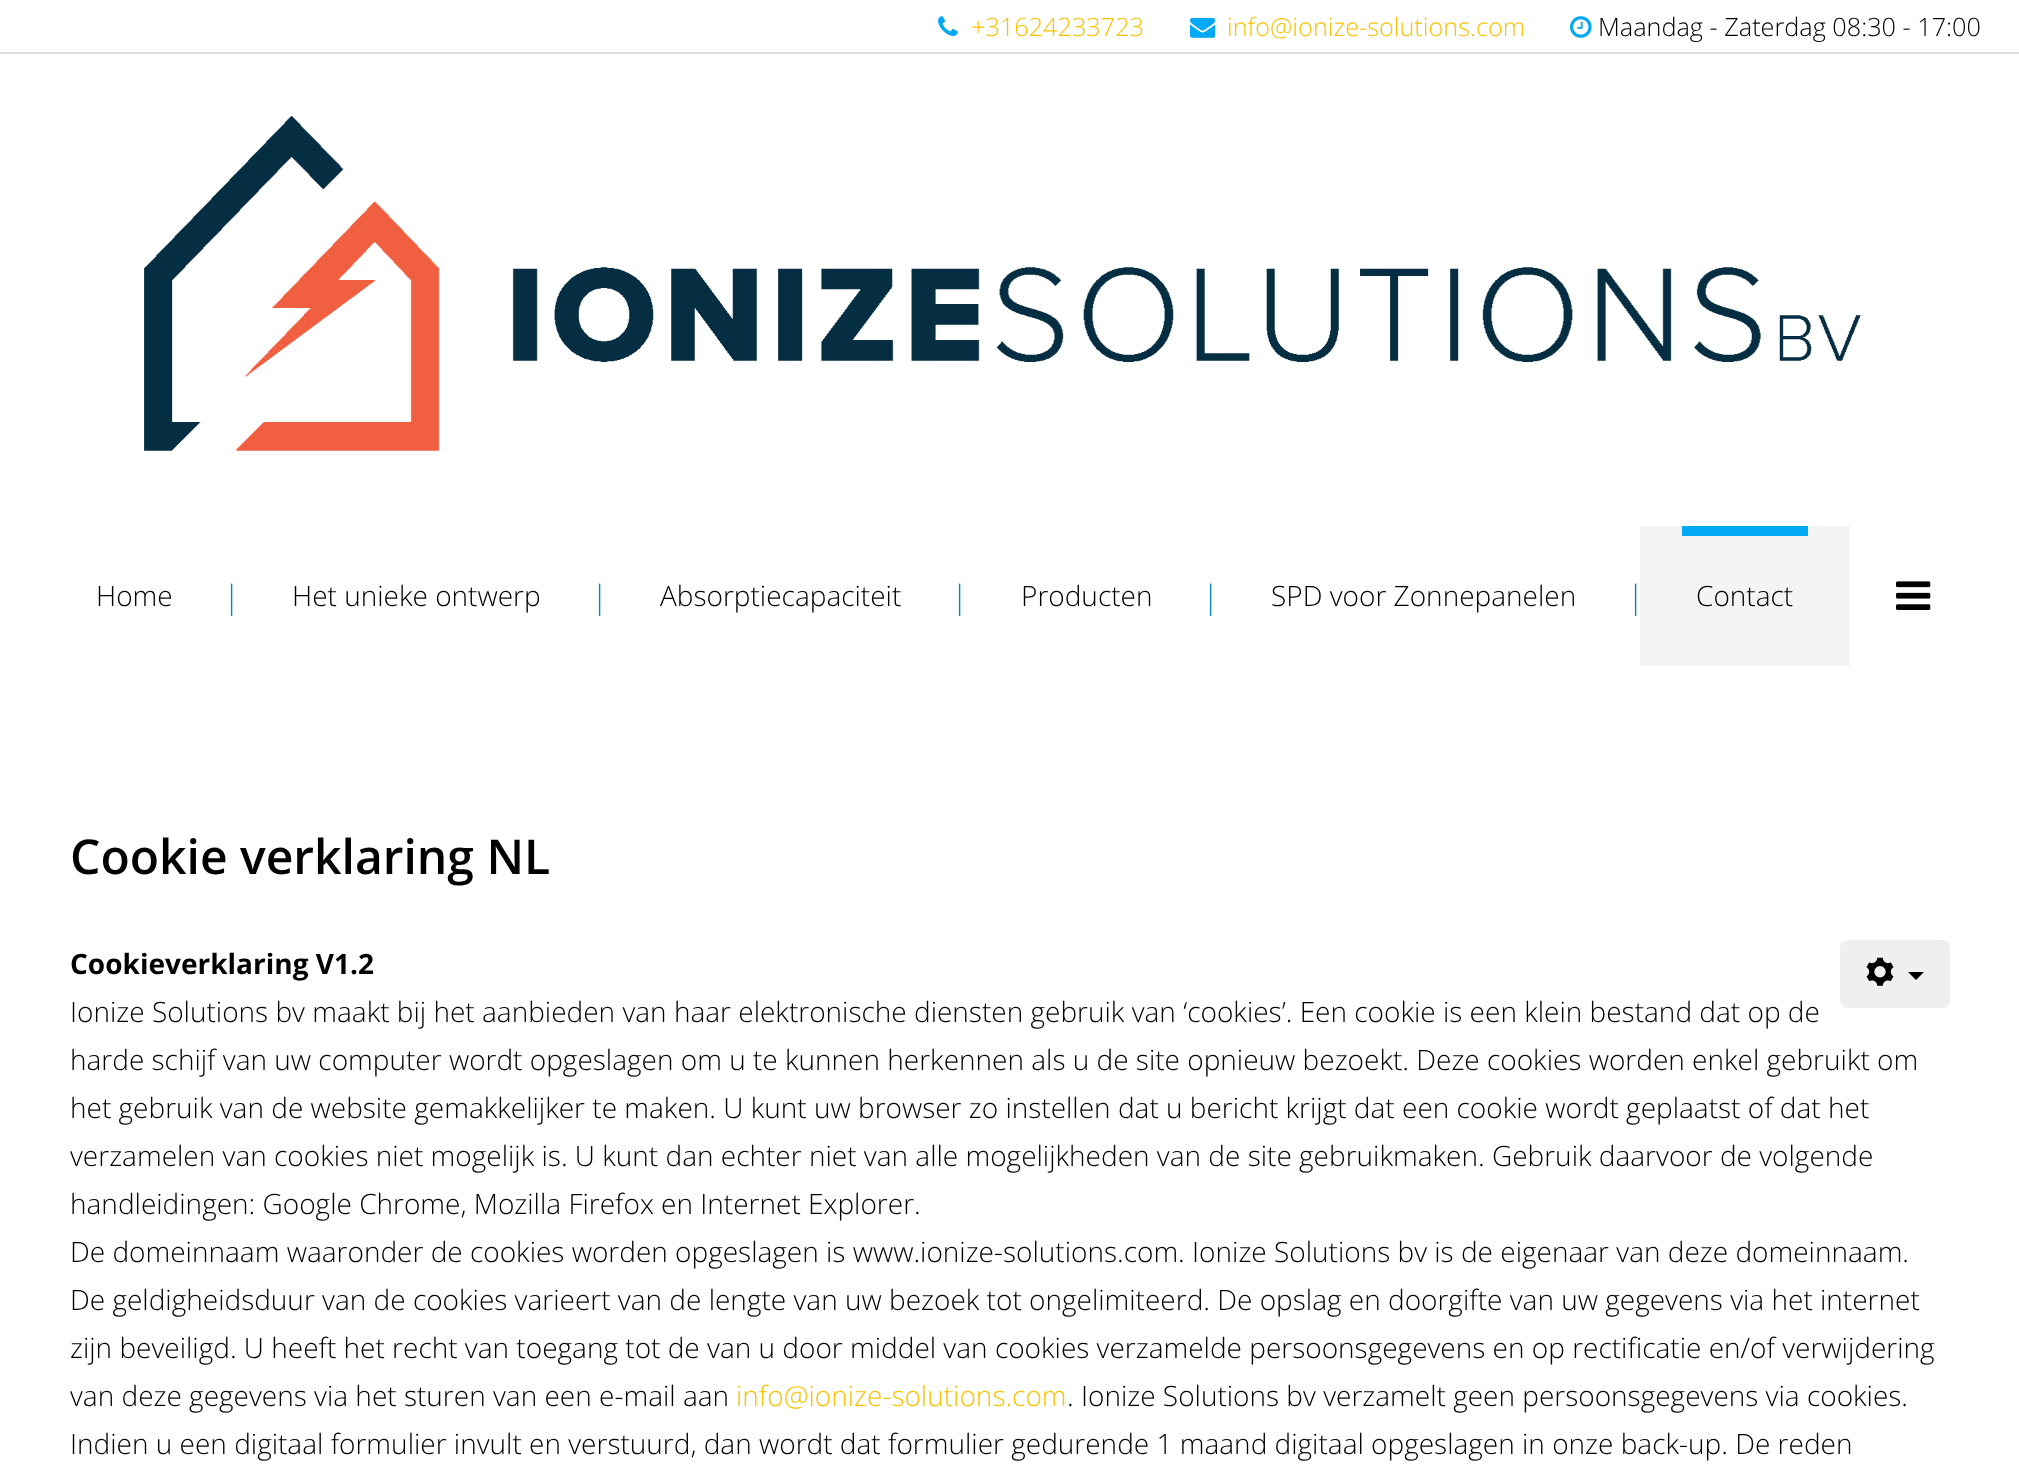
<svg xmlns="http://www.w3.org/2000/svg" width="2019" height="1471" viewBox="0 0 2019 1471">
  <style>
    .t1 { font: 300 25.25px Open Sans; fill: #fac200; }
    .t2 { font: 300 25.25px Open Sans; fill: #000; }
    .t3 { font: 300 28px Open Sans; fill: #000; }
    .t4 { font: 300 32px Open Sans; fill: #0286c2; }
    .t5 { font: 600 48px Open Sans; fill: #000; }
    .t6 { font: bold 28px Open Sans; fill: #000; }
    .t7 { font: 300 28px Open Sans; fill: #fac200; }
  </style>
  <rect width="100%" height="100%" fill="#fff"/>
  <rect x="0" y="52" width="2019" height="2" fill="#ddd"/>
  <image x="938" y="16" width="20" height="20" href="images/1.png"/>
  <text x="971" y="36" class="t1">+31624233723</text>
  <image x="1190" y="18" width="26" height="20" href="images/2.png"/>
  <text x="1227" y="36" class="t1">info@ionize-solutions.com</text>
  <image x="1570" y="16" width="22" height="22" href="images/3.png"/>
  <text x="1598" y="36" class="t2">Maandag - Zaterdag 08:30 - 17:00</text>
  <image x="144" y="116" width="1717" height="335" href="images/4.png"/>
  <text x="96" y="606" class="t3">Home</text>
  <text x="223" y="608" class="t4">|</text>
  <text x="292" y="606" class="t3">Het unieke ontwerp</text>
  <text x="591" y="608" class="t4">|</text>
  <text x="660" y="606" class="t3">Absorptiecapaciteit</text>
  <text x="951" y="608" class="t4">|</text>
  <text x="1021" y="606" class="t3">Producten</text>
  <text x="1202" y="608" class="t4">|</text>
  <text x="1271" y="606" class="t3">SPD voor Zonnepanelen</text>
  <text x="1627" y="608" class="t4">|</text>
  <rect x="1640" y="526" width="210" height="140" fill="#f4f4f4"/>
  <rect x="1682" y="526" width="126" height="10" fill="#03a9f4"/>
  <text x="1696" y="606" class="t3">Contact</text>
  <image x="1896" y="581" width="35" height="29" href="images/5.png"/>
  <text x="70" y="874" class="t5">Cookie verklaring NL</text>
  <rect x="1840" y="940" width="110" height="68" rx="8" fill="#efefef"/>
  <image x="1866" y="957" width="28" height="29" href="images/6.png"/>
  <path d="M1908 972H1924L1916 980Z" fill="#000"/>
  <text x="70" y="974" class="t6">Cookieverklaring V1.2</text>
  <text x="70" y="1022" class="t3">Ionize Solutions bv maakt bij het aanbieden van haar elektronische diensten gebruik van ‘cookies’. Een cookie is een klein bestand dat op de</text>
  <text x="70" y="1070" class="t3">harde schijf van uw computer wordt opgeslagen om u te kunnen herkennen als u de site opnieuw bezoekt. Deze cookies worden enkel gebruikt om</text>
  <text x="70" y="1118" class="t3">het gebruik van de website gemakkelijker te maken. U kunt uw browser zo instellen dat u bericht krijgt dat een cookie wordt geplaatst of dat het</text>
  <text x="70" y="1166" class="t3">verzamelen van cookies niet mogelijk is. U kunt dan echter niet van alle mogelijkheden van de site gebruikmaken. Gebruik daarvoor de volgende</text>
  <text x="70" y="1214" class="t3">handleidingen: Google Chrome, Mozilla Firefox en Internet Explorer.</text>
  <text x="70" y="1262" class="t3">De domeinnaam waaronder de cookies worden opgeslagen is www.ionize-solutions.com. Ionize Solutions bv is de eigenaar van deze domeinnaam.</text>
  <text x="70" y="1310" class="t3">De geldigheidsduur van de cookies varieert van de lengte van uw bezoek tot ongelimiteerd. De opslag en doorgifte van uw gegevens via het internet</text>
  <text x="70" y="1358" class="t3">zijn beveiligd. U heeft het recht van toegang tot de van u door middel van cookies verzamelde persoonsgegevens en op rectificatie en/of verwijdering</text>
  <text x="70" y="1406" class="t3">van deze gegevens via het sturen van een e-mail aan</text>
  <text x="736" y="1406" class="t7">info@ionize-solutions.com</text>
  <text x="1067" y="1406" class="t3">. Ionize Solutions bv verzamelt geen persoonsgegevens via cookies.</text>
  <text x="70" y="1454" class="t3">Indien u een digitaal formulier invult en verstuurd, dan wordt dat formulier gedurende 1 maand digitaal opgeslagen in onze back-up. De reden</text>
</svg>
